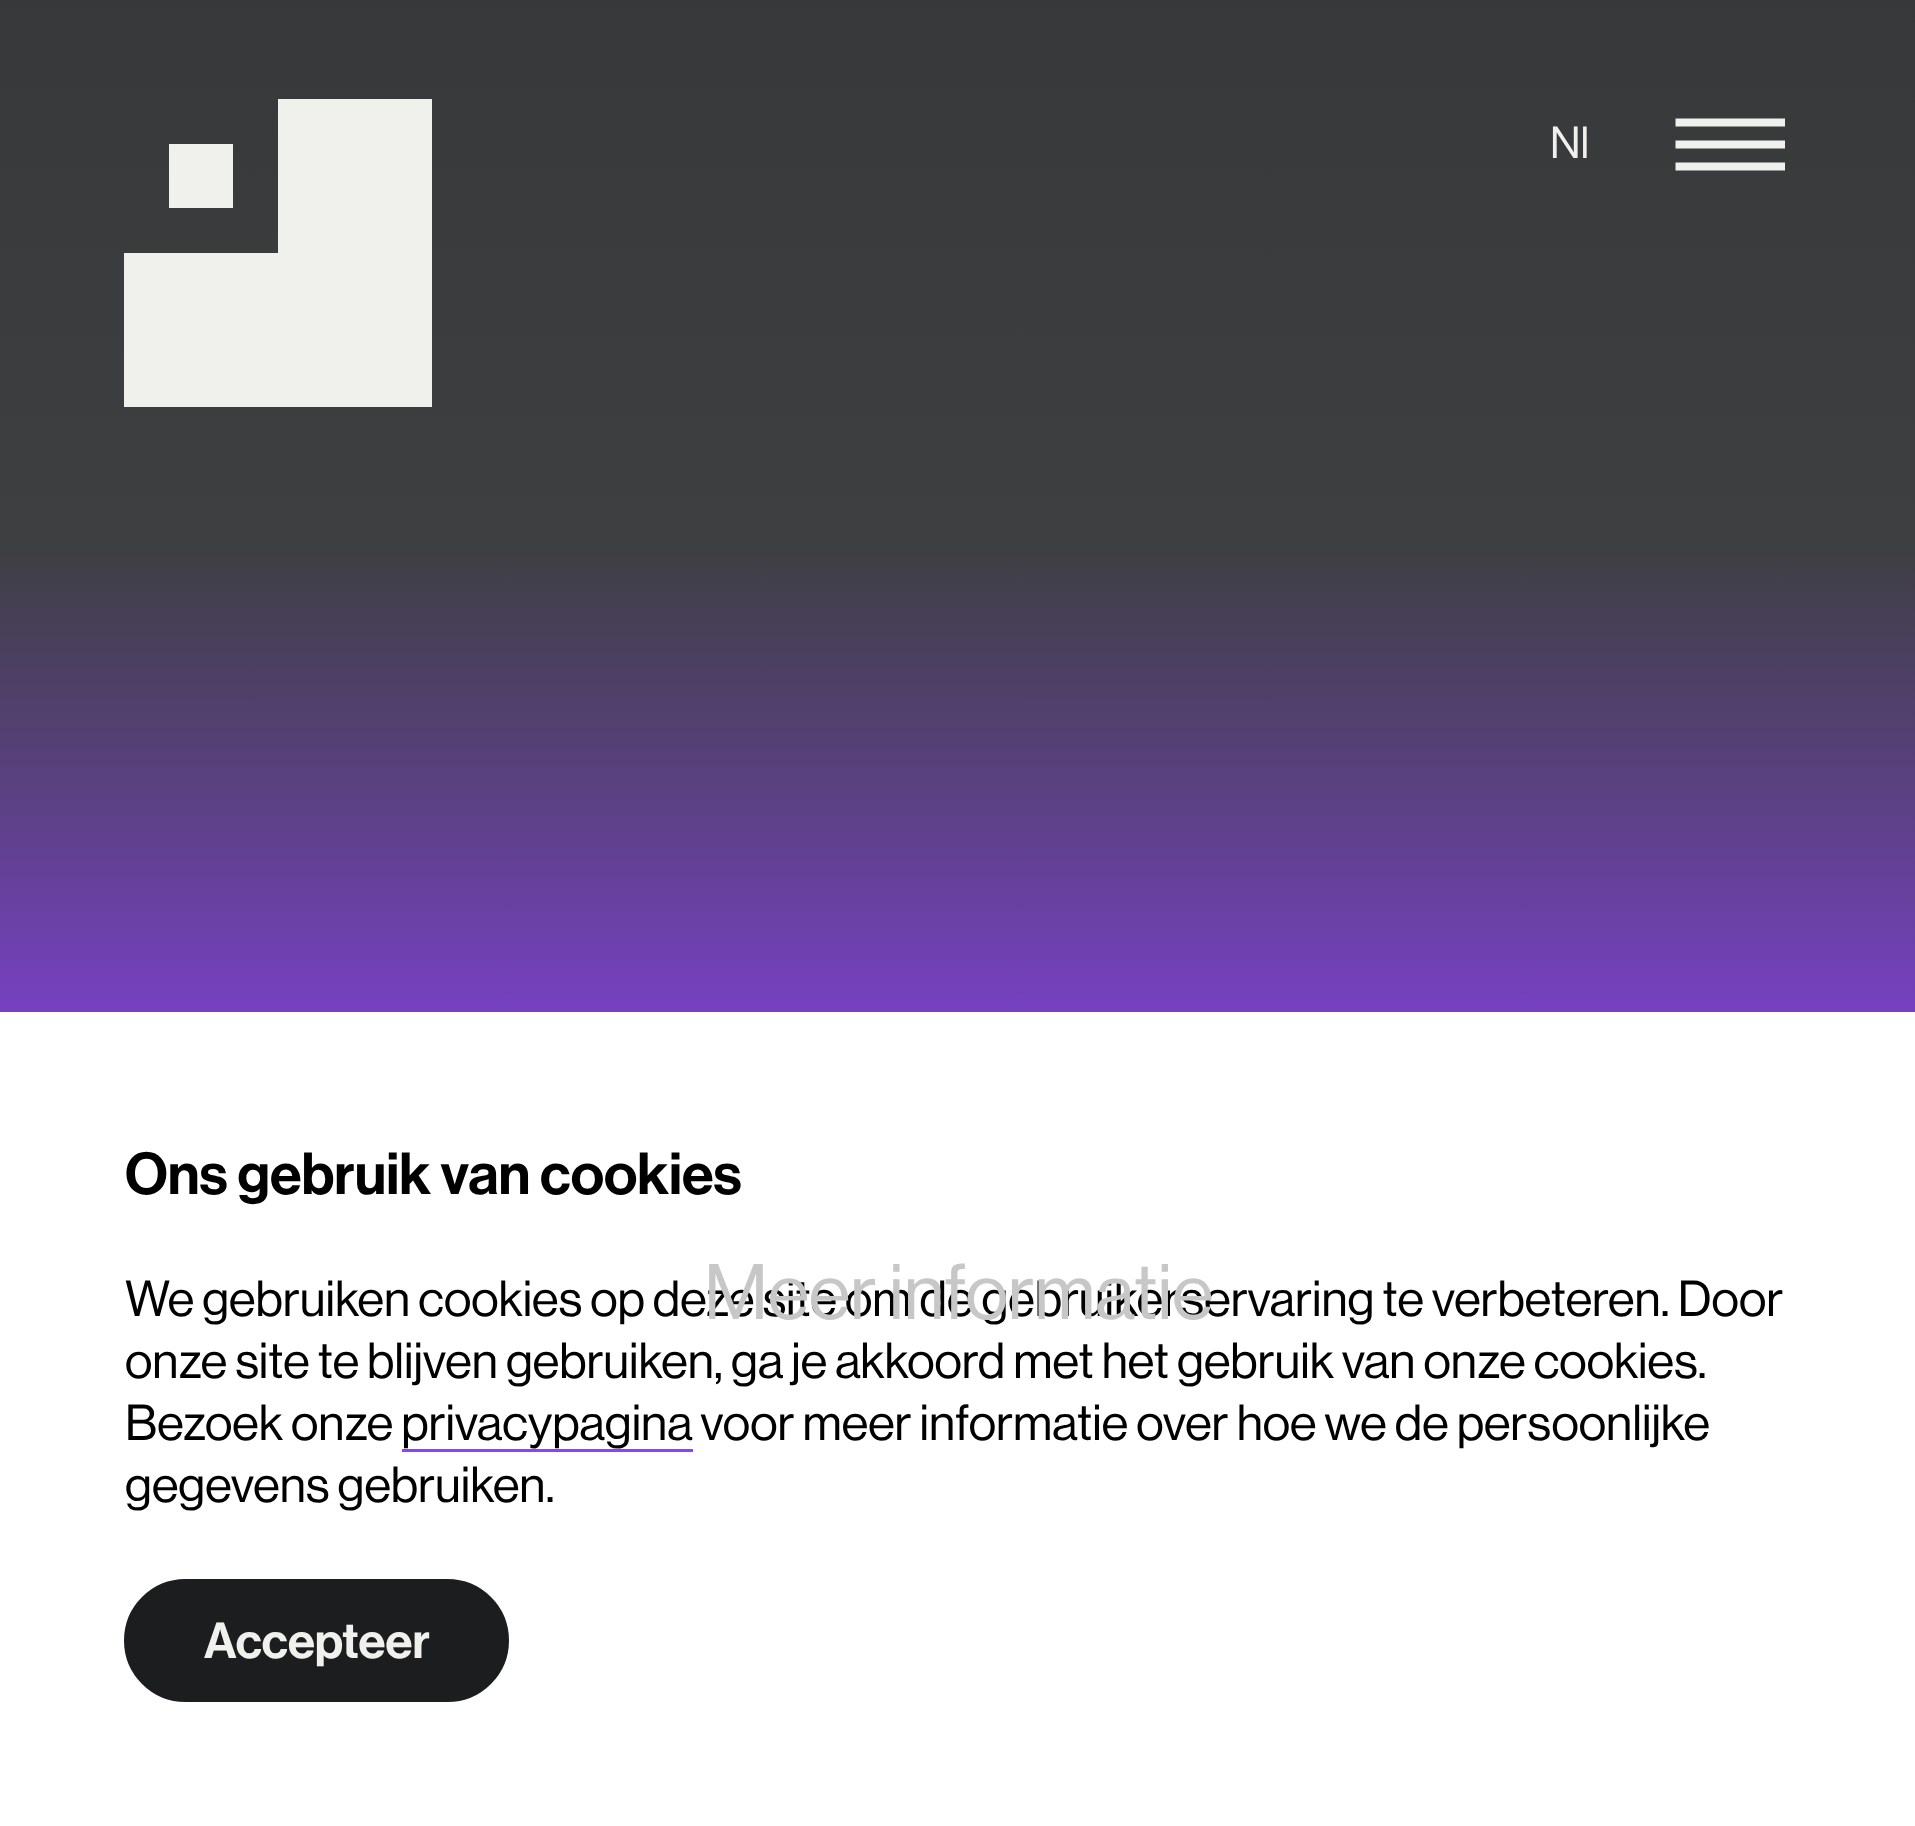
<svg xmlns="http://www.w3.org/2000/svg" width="1915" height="1826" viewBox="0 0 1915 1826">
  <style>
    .t1 { font: 500 44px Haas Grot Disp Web; fill: #f0f0ec; }
    .t2 { font: 500 49.5px Haas Grot Disp Web; fill: #000; }
    .t3 { font: 500 77px Haas Grot Disp Web; fill: #c7c7c7; }
    .t4 { font: 600 58px Haas Grot Disp Web; fill: #000; }
    .t5 { font: 600 49.5px Haas Grot Disp Web; fill: #f0f0ec; }
  </style>
  <defs>
    <linearGradient id="g1" gradientUnits="userSpaceOnUse" x1="958" y1="-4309" x2="958" y2="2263"><stop offset="0.11" stop-color="#1c1d1e"/><stop offset="0.53" stop-color="#2c2e30"/><stop offset="1" stop-color="#525455"/></linearGradient>
    <linearGradient id="g2" gradientUnits="userSpaceOnUse" x1="958" y1="467" x2="958" y2="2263"><stop offset="0.04" stop-color="#903eff" stop-opacity="0"/><stop offset="0.21" stop-color="#903eff" stop-opacity="0.4"/><stop offset="0.35" stop-color="#903eff" stop-opacity="0.8"/><stop offset="0.53" stop-color="#903eff"/><stop offset="0.71" stop-color="#903eff" stop-opacity="0.8"/><stop offset="0.88" stop-color="#903eff" stop-opacity="0.4"/><stop offset="1" stop-color="#903eff" stop-opacity="0"/></linearGradient>
  </defs>
  <rect width="100%" height="100%" fill="#fff"/>
  <rect x="0" y="0" width="1915" height="1012" fill="url(#g1)"/>
  <rect x="0" y="555" width="1915" height="457" fill="url(#g2)"/>
  <path d="M169 208H233V144H169ZM432 407V99H278V253H124V407Z" fill="#f0f0ec"/>
  <text x="1550" y="158" class="t1">Nl</text>
  <path d="M1675.5 122.5H1785" fill="none" stroke="#f0f0ec" stroke-width="8.2"/>
  <path d="M1675.5 144.5H1785" fill="none" stroke="#f0f0ec" stroke-width="8.2"/>
  <path d="M1675.5 166.5H1785" fill="none" stroke="#f0f0ec" stroke-width="8.2"/>
  <text x="125" y="1316" class="t2">We gebruiken cookies op deze site om de gebruikerservaring te verbeteren. Door</text>
  <text x="704" y="1319" class="t3">Meer informatie</text>
  <text x="125" y="1194" class="t4">Ons gebruik van cookies</text>
  <text x="125" y="1378" class="t2">onze site te blijven gebruiken, ga je akkoord met het gebruik van onze cookies.</text>
  <text x="125" y="1440" class="t2">Bezoek onze privacypagina voor meer informatie over hoe we de persoonlijke</text>
  <rect x="402" y="1449" width="291" height="3" fill="#903eff"/>
  <text x="125" y="1502" class="t2">gegevens gebruiken.</text>
  <rect x="125.5" y="1580.5" width="382" height="120" rx="60" fill="#1c1d1e" stroke="#1c1d1e" stroke-width="3"/>
  <text x="204" y="1658" class="t5">Accepteer</text>
</svg>
